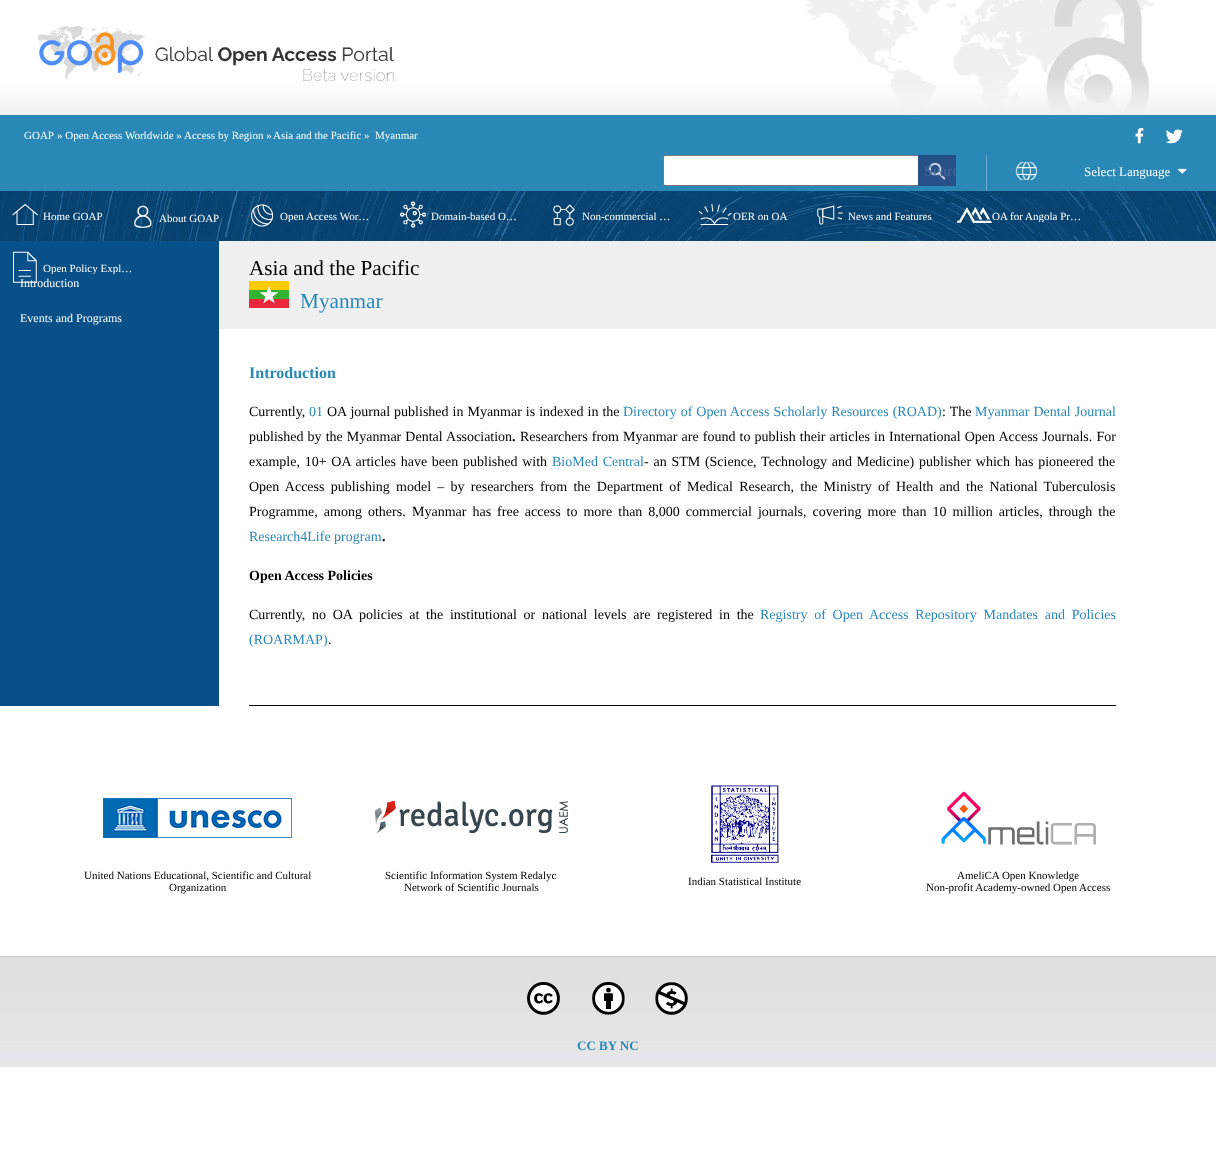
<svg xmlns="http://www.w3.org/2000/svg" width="1216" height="1173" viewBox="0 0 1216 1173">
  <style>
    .t1 { font: 11px Liberation Serif; fill: #fff; }
    .t2 { font: 16px Liberation Serif; fill: #436897; }
    .t3 { font: 13px Liberation Serif; fill: #fff; }
    .t4 { font: 12px Liberation Serif; fill: #fff; }
    .t5 { font: 21.25px Liberation Serif; fill: #000; }
    .t6 { font: 21.25px Liberation Serif; fill: #2a88b7; }
    .t7 { font: bold 16px Liberation Serif; fill: #2a88b7; }
    .t8 { font: 14px Liberation Serif; fill: #000; }
    .t9 { font: 14px Liberation Serif; fill: #2a88b7; }
    .t10 { font: bold 14px Liberation Serif; fill: #000; }
    .t11 { font: 11px Liberation Serif; fill: #000; }
    .t12 { font: bold 13px Liberation Serif; fill: #2a88b7; }
  </style>
  <defs>
    <linearGradient id="g1" gradientUnits="userSpaceOnUse" x1="608" y1="75" x2="608" y2="115"><stop offset="0" stop-color="#f6f6f6" stop-opacity="0"/><stop offset="0.47" stop-color="#f6f6f6" stop-opacity="0.5"/><stop offset="1" stop-color="#f0f0f0"/></linearGradient>
    <clipPath id="clip1"><rect x="918" y="155" width="38" height="31"/></clipPath>
    <clipPath id="clip2"><rect x="280" y="210" width="105" height="12"/></clipPath>
    <clipPath id="clip3"><rect x="992" y="210" width="105" height="12"/></clipPath>
    <clipPath id="clip4"><rect x="43" y="262" width="105" height="12"/></clipPath>
  </defs>
  <rect width="100%" height="100%" fill="#fff"/>
  <image x="806" y="0" width="348" height="115" href="images/1.png"/>
  <image x="37" y="25" width="358" height="57" href="images/2.png"/>
  <rect x="0" y="76" width="1216" height="39" fill="url(#g1)"/>
  <rect x="0" y="115" width="1216" height="76" fill="#2a88b7"/>
  <text x="24" y="139" class="t1">GOAP</text>
  <text x="57" y="139" class="t1">» Open Access Worldwide »</text>
  <text x="184" y="139" class="t1">Access by Region »</text>
  <text x="273" y="139" class="t1">Asia and the Pacific »</text>
  <text x="375" y="139" class="t1">Myanmar</text>
  <image x="1135" y="128" width="9" height="16" href="images/3.png"/>
  <image x="1166" y="129" width="17" height="15" href="images/4.png"/>
  <rect x="986" y="155" width="1" height="36" fill="#6aaccd"/>
  <rect x="663.5" y="155.5" width="257" height="30" rx="1.5" fill="#fff" stroke="#767676"/>
  <rect x="918" y="155" width="38" height="31" fill="#265087"/>
  <image x="928" y="162" width="18" height="18" href="images/5.png"/>
  <g clip-path="url(#clip1)">
    <text x="924" y="176" class="t2">Searc</text>
  </g>
  <image x="1015" y="162" width="23" height="18" href="images/6.png"/>
  <image x="1178" y="168" width="9" height="6" href="images/7.png"/>
  <text x="1084" y="176" class="t3">Select Language</text>
  <image x="0" y="191" width="1216" height="50" href="images/8.png"/>
  <image x="12" y="204" width="26" height="21" href="images/9.png"/>
  <text x="43" y="220" class="t1">Home GOAP</text>
  <image x="134" y="205" width="18" height="23" href="images/10.png"/>
  <text x="159" y="222" class="t1">About GOAP</text>
  <image x="251" y="204" width="22" height="23" href="images/11.png"/>
  <g clip-path="url(#clip2)">
    <text x="280" y="220" class="t1">Open Access Wor…</text>
  </g>
  <image x="400" y="201" width="26" height="27" href="images/12.png"/>
  <text x="431" y="220" class="t1">Domain-based O…</text>
  <image x="553" y="204" width="22" height="22" href="images/13.png"/>
  <text x="582" y="220" class="t1">Non-commercial …</text>
  <image x="698" y="204" width="34" height="21" href="images/14.png"/>
  <text x="733" y="220" class="t1">OER on OA</text>
  <image x="817" y="205" width="26" height="20" href="images/15.png"/>
  <text x="848" y="220" class="t1">News and Features</text>
  <image x="956" y="207" width="36" height="16" href="images/16.png"/>
  <g clip-path="url(#clip3)">
    <text x="992" y="220" class="t1">OA for Angola Pr…</text>
  </g>
  <rect x="0" y="241" width="219" height="465" fill="#085087"/>
  <image x="13" y="251" width="24" height="32" href="images/17.png"/>
  <g clip-path="url(#clip4)">
    <text x="43" y="272" class="t1">Open Policy Expl…</text>
  </g>
  <text x="20" y="287" class="t4">Introduction</text>
  <text x="20" y="322" class="t4">Events and Programs</text>
  <rect x="219" y="241" width="997" height="88" fill="#f0f0f0"/>
  <text x="249" y="275" class="t5">Asia and the Pacific</text>
  <image x="249" y="281" width="40" height="27" href="images/18.png"/>
  <text x="300" y="308" class="t6">Myanmar</text>
  <rect x="249" y="705" width="867" height="1" fill="#000"/>
  <text x="249" y="378" class="t7">Introduction</text>
  <text x="249" y="416" class="t8">Currently,</text>
  <text x="309" y="416" class="t9">01</text>
  <text x="327" y="416" word-spacing="0.5" class="t8">OA journal published in Myanmar is indexed in the</text>
  <text x="623" y="416" word-spacing="0.5" class="t9">Directory of Open Access Scholarly Resources (ROAD)</text>
  <text x="942" y="416" word-spacing="0.5" class="t8">: The</text>
  <text x="975" y="416" word-spacing="0.5" class="t9">Myanmar Dental Journal</text>
  <text x="249" y="441" word-spacing="0.6" class="t8">published by the Myanmar Dental Association</text>
  <text x="512" y="441" class="t10">.</text>
  <text x="520" y="441" word-spacing="0.6" class="t8">Researchers from Myanmar are found to publish their articles in International Open Access Journals. For</text>
  <text x="249" y="466" word-spacing="1.25" class="t8">example, 10+ OA articles have been published with</text>
  <text x="552" y="466" word-spacing="1.25" class="t9">BioMed Central</text>
  <text x="644" y="466" word-spacing="1.25" class="t8">- an STM (Science, Technology and Medicine) publisher which has pioneered the</text>
  <text x="249" y="491" word-spacing="2.75" class="t8">Open Access publishing model – by researchers from the Department of Medical Research, the Ministry of Health and the National Tuberculosis</text>
  <text x="249" y="516" word-spacing="2.5" class="t8">Programme, among others.</text>
  <text x="412" y="516" word-spacing="2.5" class="t8">Myanmar has free access to more than 8,000 commercial journals, covering more than 10 million articles, through the</text>
  <text x="249" y="541" class="t9">Research4Life program</text>
  <text x="382" y="541" class="t10">.</text>
  <text x="249" y="580" class="t10">Open Access Policies</text>
  <text x="249" y="619" word-spacing="3.25" class="t8">Currently, no OA policies at the institutional or national levels are registered in the</text>
  <text x="760" y="619" word-spacing="3.25" class="t9">Registry of Open Access Repository Mandates and Policies</text>
  <text x="249" y="644" class="t9">(ROARMAP)</text>
  <text x="328" y="644" class="t8">.</text>
  <image x="103" y="798" width="189" height="40" href="images/19.png"/>
  <text x="84" y="879" class="t11">United Nations Educational, Scientific and Cultural</text>
  <text x="169" y="891" class="t11">Organization</text>
  <image x="375" y="801" width="193" height="33" href="images/20.png"/>
  <text x="385" y="879" class="t11">Scientific Information System Redalyc</text>
  <text x="404" y="891" class="t11">Network of Scientific Journals</text>
  <image x="711" y="785" width="68" height="78" href="images/21.png"/>
  <text x="688" y="885" class="t11">Indian Statistical Institute</text>
  <image x="941" y="791" width="155" height="54" href="images/22.png"/>
  <text x="957" y="879" class="t11">AmeliCA Open Knowledge</text>
  <text x="926" y="891" class="t11">Non-profit Academy-owned Open Access</text>
  <image x="0" y="957" width="1216" height="110" href="images/23.png"/>
  <rect x="0" y="956" width="1216" height="1" fill="#ccc"/>
  <image x="527" y="982" width="33" height="33" href="images/24.png"/>
  <image x="592" y="982" width="33" height="33" href="images/25.png"/>
  <image x="655" y="982" width="33" height="33" href="images/26.png"/>
  <text x="577" y="1050" class="t12">CC BY NC</text>
</svg>
